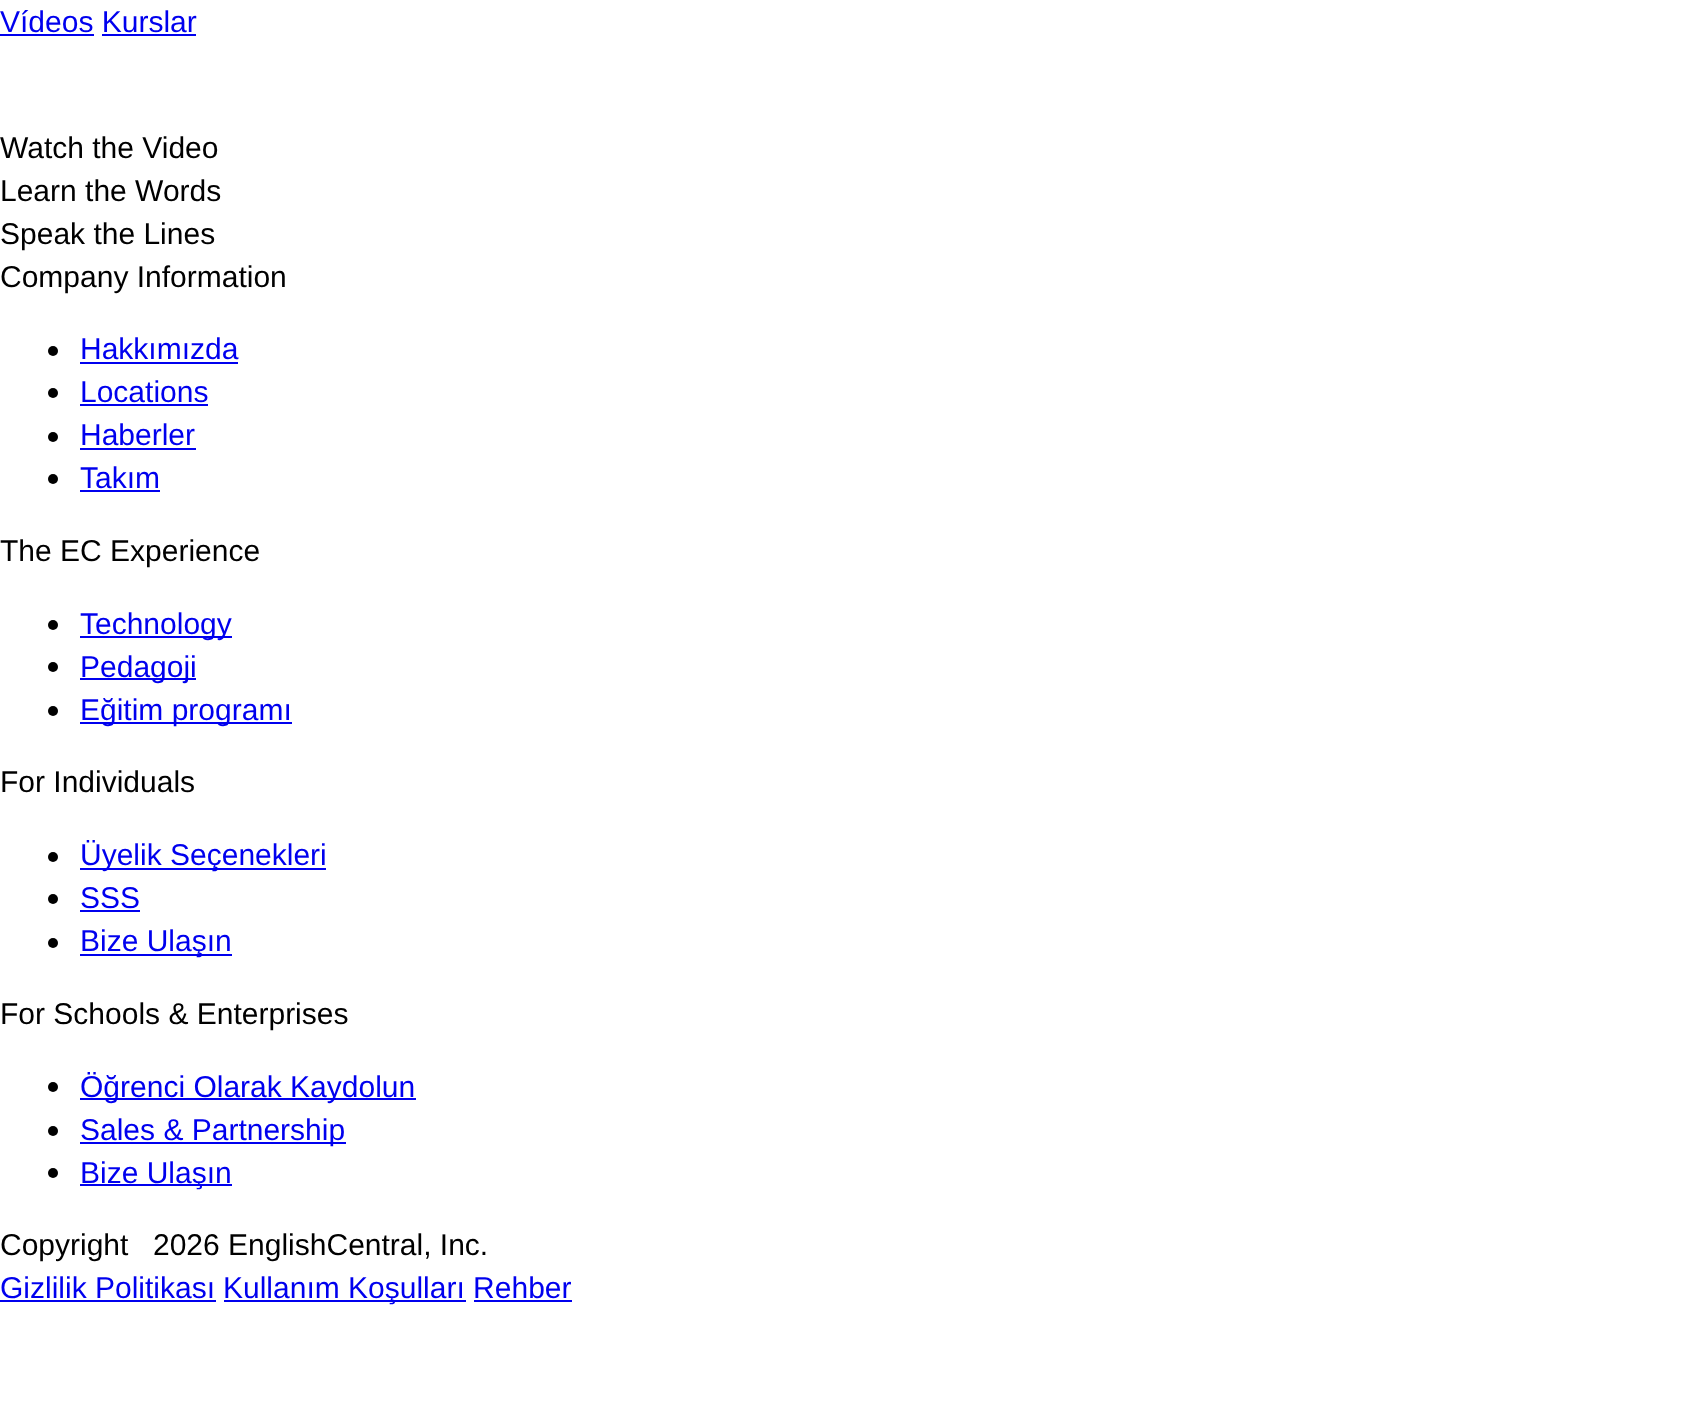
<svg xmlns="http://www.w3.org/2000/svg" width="1685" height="1412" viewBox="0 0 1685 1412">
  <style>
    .t1 { font: 30px Liberation Sans; fill: #00e; }
    .t2 { font: 30px Liberation Sans; fill: #000; }
  </style>
  <rect width="100%" height="100%" fill="#fff"/>
  <text x="0" y="32" class="t1">Vídeos Kurslar</text>
  <rect x="0" y="34" width="94" height="2" fill="#00e"/>
  <rect x="102" y="34" width="94" height="2" fill="#00e"/>
  <text x="0" y="158" class="t2">Watch the Video</text>
  <text x="0" y="201" class="t2">Learn the Words</text>
  <text x="0" y="244" class="t2">Speak the Lines</text>
  <text x="0" y="287" class="t2">Company Information</text>
  <circle cx="53" cy="351" r="5" fill="#000"/>
  <text x="80" y="359" class="t1">Hakkımızda</text>
  <rect x="80" y="362" width="158" height="2" fill="#00e"/>
  <circle cx="53" cy="393" r="5" fill="#000"/>
  <text x="80" y="402" class="t1">Locations</text>
  <rect x="80" y="404" width="128" height="2" fill="#00e"/>
  <circle cx="53" cy="437" r="5" fill="#000"/>
  <text x="80" y="445" class="t1">Haberler</text>
  <rect x="80" y="448" width="116" height="2" fill="#00e"/>
  <circle cx="53" cy="479" r="5" fill="#000"/>
  <text x="80" y="488" class="t1">Takım</text>
  <rect x="80" y="490" width="80" height="2" fill="#00e"/>
  <text x="0" y="561" class="t2">The EC Experience</text>
  <circle cx="53" cy="625" r="5" fill="#000"/>
  <rect x="80" y="636" width="152" height="2" fill="#00e"/>
  <text x="80" y="634" class="t1">Technology</text>
  <circle cx="53" cy="667" r="5" fill="#000"/>
  <rect x="80" y="678" width="116" height="2" fill="#00e"/>
  <text x="80" y="677" class="t1">Pedagoji</text>
  <circle cx="53" cy="711" r="5" fill="#000"/>
  <rect x="80" y="722" width="212" height="2" fill="#00e"/>
  <text x="80" y="720" class="t1">Eğitim programı</text>
  <text x="0" y="792" class="t2">For Individuals</text>
  <circle cx="53" cy="857" r="5" fill="#000"/>
  <rect x="80" y="868" width="246" height="2" fill="#00e"/>
  <text x="80" y="865" class="t1">Üyelik Seçenekleri</text>
  <circle cx="53" cy="899" r="5" fill="#000"/>
  <text x="80" y="908" class="t1">SSS</text>
  <rect x="80" y="910" width="60" height="2" fill="#00e"/>
  <circle cx="53" cy="943" r="5" fill="#000"/>
  <rect x="80" y="954" width="152" height="2" fill="#00e"/>
  <text x="80" y="951" class="t1">Bize Ulaşın</text>
  <text x="0" y="1024" class="t2">For Schools &amp; Enterprises</text>
  <circle cx="53" cy="1087" r="5" fill="#000"/>
  <rect x="80" y="1098" width="336" height="2" fill="#00e"/>
  <text x="80" y="1097" class="t1">Öğrenci Olarak Kaydolun</text>
  <circle cx="53" cy="1131" r="5" fill="#000"/>
  <rect x="80" y="1142" width="266" height="2" fill="#00e"/>
  <text x="80" y="1140" class="t1">Sales &amp; Partnership</text>
  <circle cx="53" cy="1173" r="5" fill="#000"/>
  <rect x="80" y="1184" width="152" height="2" fill="#00e"/>
  <text x="80" y="1183" class="t1">Bize Ulaşın</text>
  <text x="0" y="1255" class="t2">Copyright</text>
  <text x="153" y="1255" class="t2">2026 EnglishCentral, Inc.</text>
  <text x="0" y="1298" class="t1">Gizlilik Politikası</text>
  <rect x="0" y="1300" width="216" height="2" fill="#00e"/>
  <rect x="224" y="1300" width="242" height="2" fill="#00e"/>
  <text x="223" y="1298" class="t1">Kullanım Koşulları Rehber</text>
  <rect x="474" y="1300" width="98" height="2" fill="#00e"/>
</svg>
